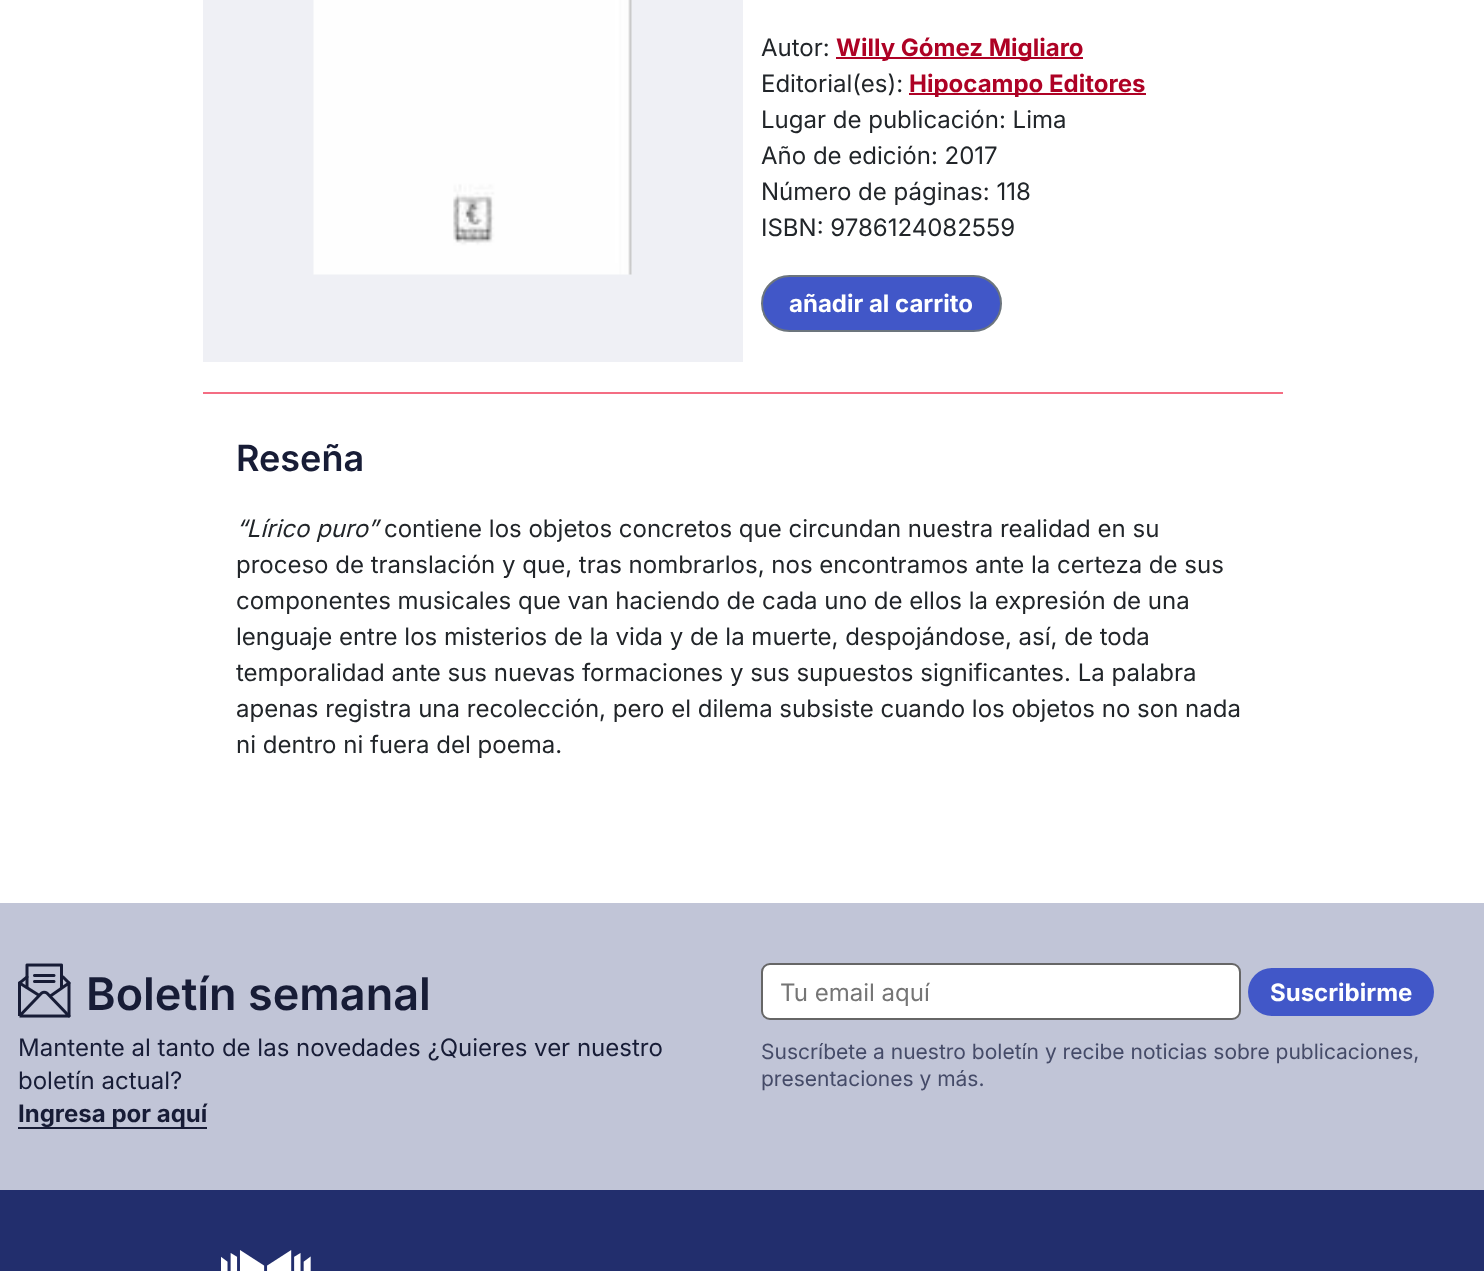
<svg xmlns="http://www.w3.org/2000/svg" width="1484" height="1271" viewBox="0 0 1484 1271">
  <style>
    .t1 { font: 24px Inter; fill: #212529; }
    .t2 { font: bold 24px Inter; fill: #ae0225; }
    .t3 { font: bold 24px Inter; fill: #fff; }
    .t4 { font: 600 36px Inter; fill: #171c36; }
    .t5 { font: italic 24px Inter; fill: #212529; }
    .t6 { font: 600 45px Inter; fill: #171c36; }
    .t7 { font: 24px Inter; fill: #171c36; }
    .t8 { font: bold 24px Inter; fill: #171c36; }
    .t9 { font: 24px Inter; fill: #757575; }
    .t10 { font: 21px Inter; fill: #454b68; }
  </style>
  <rect width="100%" height="100%" fill="#fff"/>
  <rect x="203" y="0" width="540" height="362" fill="#eff0f5"/>
  <image x="313" y="0" width="319" height="275" href="images/1.png"/>
  <text x="761" y="56" class="t1">Autor:</text>
  <rect x="836" y="57" width="247" height="2" fill="#ae0225"/>
  <text x="836" y="56" class="t2">Willy Gómez Migliaro</text>
  <text x="761" y="92" class="t1">Editorial(es):</text>
  <rect x="909" y="93" width="237" height="2" fill="#ae0225"/>
  <text x="909" y="92" class="t2">Hipocampo Editores</text>
  <text x="761" y="128" class="t1">Lugar de publicación: Lima</text>
  <text x="761" y="164" class="t1">Año de edición: 2017</text>
  <text x="761" y="200" class="t1">Número de páginas: 118</text>
  <text x="761" y="236" class="t1">ISBN: 9786124082559</text>
  <rect x="762" y="276" width="239" height="55" rx="27.5" fill="#4157c8" stroke="#6c757d" stroke-width="2"/>
  <text x="789" y="312" class="t3">añadir al carrito</text>
  <rect x="203" y="392" width="1080" height="2" fill="#f46d83"/>
  <text x="236" y="471" class="t4">Reseña</text>
  <text x="236" y="537" class="t5">“Lírico puro”</text>
  <text x="384" y="537" class="t1">contiene los objetos concretos que circundan nuestra realidad en su</text>
  <text x="236" y="573" class="t1">proceso de translación y que, tras nombrarlos, nos encontramos ante la certeza de sus</text>
  <text x="236" y="609" class="t1">componentes musicales que van haciendo de cada uno de ellos la expresión de una</text>
  <text x="236" y="645" class="t1">lenguaje entre los misterios de la vida y de la muerte, despojándose, así, de toda</text>
  <text x="236" y="681" class="t1">temporalidad ante sus nuevas formaciones y sus supuestos significantes. La palabra</text>
  <text x="236" y="717" class="t1">apenas registra una recolección, pero el dilema subsiste cuando los objetos no son nada</text>
  <text x="236" y="753" class="t1">ni dentro ni fuera del poema.</text>
  <rect x="0" y="903" width="1484" height="287" fill="#c1c5d7"/>
  <image x="18" y="963" width="53" height="55" href="images/2.png"/>
  <text x="86" y="1010" class="t6">Boletín semanal</text>
  <text x="18" y="1056" class="t7">Mantente al tanto de las novedades ¿Quieres ver nuestro</text>
  <text x="18" y="1089" class="t7">boletín actual?</text>
  <rect x="18" y="1127" width="189" height="2" fill="#171c36"/>
  <text x="18" y="1122" class="t8">Ingresa por aquí</text>
  <rect x="762" y="964" width="478" height="55" rx="8" fill="#fff" stroke="#666" stroke-width="2"/>
  <text x="780" y="1001" class="t9">Tu email aquí</text>
  <rect x="1248" y="968" width="186" height="48" rx="24" fill="#4157c8"/>
  <text x="1270" y="1001" class="t3">Suscribirme</text>
  <text x="761" y="1059" class="t10">Suscríbete a nuestro boletín y recibe noticias sobre publicaciones,</text>
  <text x="761" y="1086" class="t10">presentaciones y más.</text>
  <rect x="0" y="1190" width="1484" height="81" fill="#222e6d"/>
  <image x="221" y="1250" width="90" height="21" href="images/3.png"/>
</svg>
